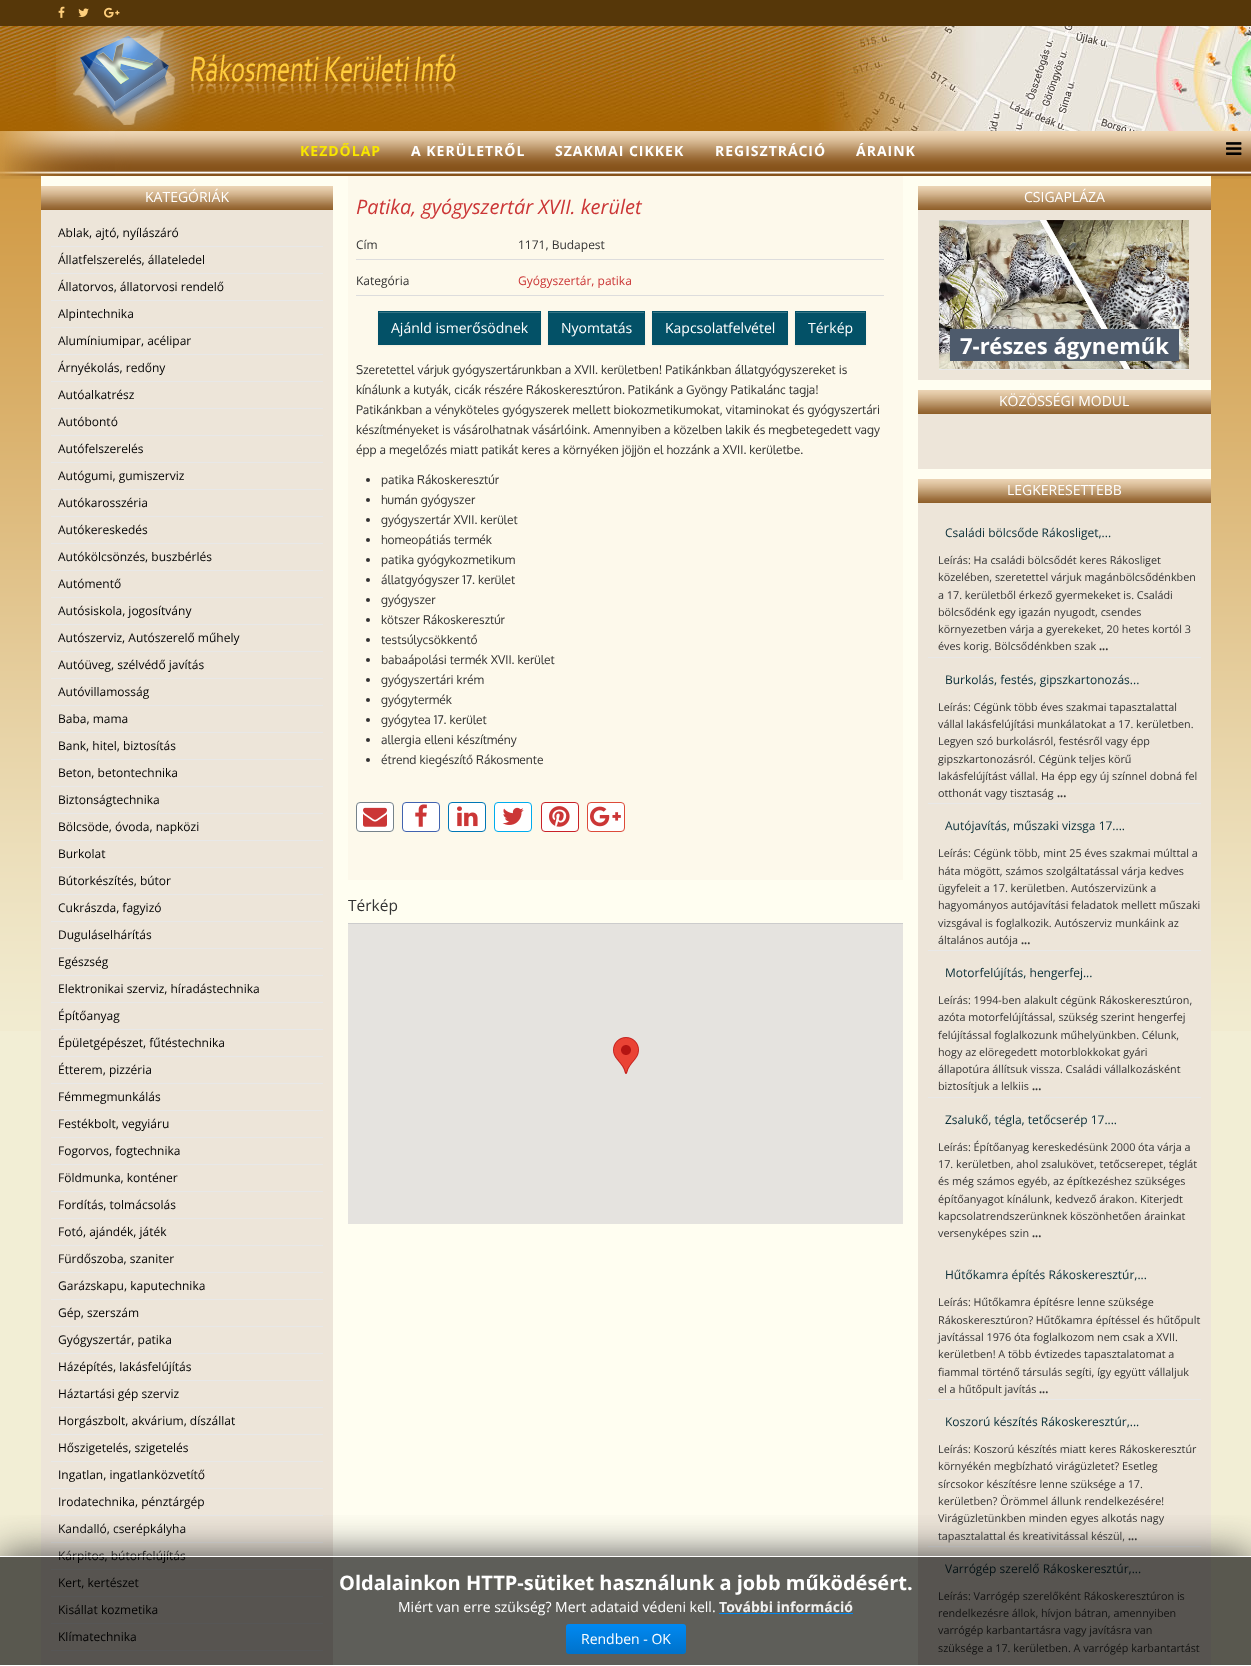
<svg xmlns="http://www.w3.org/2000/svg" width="1251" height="1666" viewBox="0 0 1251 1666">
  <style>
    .t1 { font: bold 14px Open Sans; letter-spacing: 1px; fill: #f8e601; }
    .t2 { font: bold 14px Open Sans; letter-spacing: 1px; fill: #fff; }
    .t3 { font: 14px Open Sans; fill: #fff; }
    .t4 { font: 12px Open Sans; fill: #000; }
    .t5 { font: italic 20px Open Sans; fill: #cb3636; }
    .t6 { font: 12px Open Sans; fill: #333; }
    .t7 { font: 12px Open Sans; fill: #cb3636; }
    .t8 { font: 12px Oxygen; fill: #333; }
    .t9 { font: 15.5px Open Sans; fill: #333; }
    .t10 { font: bold 22px Open Sans; fill: #fff; }
    .t11 { font: 12px Open Sans; fill: #082d37; }
    .t12 { font: 10.8px Open Sans; fill: #333; }
    .t13 { font: bold 10.8px Open Sans; fill: #333; }
    .t14 { font: bold 20px Open Sans; fill: #fff; }
    .t15 { font: bold 14px Open Sans; fill: #efefee; }
  </style>
  <defs>
    <clipPath id="clip1"><rect x="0" y="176" width="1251" height="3"/></clipPath>
    <clipPath id="clip2"><rect x="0" y="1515" width="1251" height="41"/></clipPath>
    <linearGradient id="g1" gradientUnits="userSpaceOnUse" x1="626" y1="1624" x2="626" y2="1654"><stop offset="0" stop-color="#0089f2"/><stop offset="1" stop-color="#0072ca"/></linearGradient>
  </defs>
  <rect width="100%" height="100%" fill="#f2eed5"/>
  <image x="0" y="131" width="1251" height="900" href="images/1.png"/>
  <rect x="0" y="0" width="1251" height="26" fill="#563709"/>
  <image x="58" y="6" width="7" height="12" href="images/2.png"/>
  <image x="78" y="8" width="11" height="9" href="images/3.png"/>
  <image x="104" y="7" width="16" height="11" href="images/4.png"/>
  <image x="0" y="26" width="1251" height="105" href="images/5.png"/>
  <g clip-path="url(#clip1)">
    <rect x="0" y="134" width="1251" height="45" fill="#0000000d" filter="blur(1.5px)"/>
  </g>
  <image x="56" y="26" width="400" height="105" href="images/6.png"/>
  <image x="5" y="131" width="1246" height="45" href="images/7.png"/>
  <image x="0" y="131" width="1251" height="45" href="images/8.png"/>
  <image x="0" y="131" width="115" height="45" href="images/9.png"/>
  <text x="300" y="156" class="t1">KEZDŐLAP</text>
  <text x="411" y="156" class="t2">A KERÜLETRŐL</text>
  <text x="555" y="156" class="t2">SZAKMAI CIKKEK</text>
  <text x="715" y="156" class="t2">REGISZTRÁCIÓ</text>
  <text x="856" y="156" class="t2">ÁRAINK</text>
  <image x="1226" y="142" width="16" height="13" href="images/10.png"/>
  <rect x="41" y="176" width="1170" height="1489" fill="#fffef1"/>
  <image x="41" y="186" width="292" height="24" href="images/11.png"/>
  <text x="145" y="202" class="t3">KATEGÓRIÁK</text>
  <rect x="41" y="210" width="292" height="1455" fill="#ede5d9"/>
  <rect x="51" y="246" width="272" height="1" fill="#e8e8e8"/>
  <text x="58" y="237" class="t4">Ablak, ajtó, nyílászáró</text>
  <rect x="51" y="273" width="272" height="1" fill="#e8e8e8"/>
  <text x="58" y="264" class="t4">Állatfelszerelés, állateledel</text>
  <rect x="51" y="300" width="272" height="1" fill="#e8e8e8"/>
  <text x="58" y="291" class="t4">Állatorvos, állatorvosi rendelő</text>
  <rect x="51" y="327" width="272" height="1" fill="#e8e8e8"/>
  <text x="58" y="318" class="t4">Alpintechnika</text>
  <rect x="51" y="354" width="272" height="1" fill="#e8e8e8"/>
  <text x="58" y="345" class="t4">Alumíniumipar, acélipar</text>
  <rect x="51" y="381" width="272" height="1" fill="#e8e8e8"/>
  <text x="58" y="372" class="t4">Árnyékolás, redőny</text>
  <rect x="51" y="408" width="272" height="1" fill="#e8e8e8"/>
  <text x="58" y="399" class="t4">Autóalkatrész</text>
  <rect x="51" y="435" width="272" height="1" fill="#e8e8e8"/>
  <text x="58" y="426" class="t4">Autóbontó</text>
  <rect x="51" y="462" width="272" height="1" fill="#e8e8e8"/>
  <text x="58" y="453" class="t4">Autófelszerelés</text>
  <rect x="51" y="489" width="272" height="1" fill="#e8e8e8"/>
  <text x="58" y="480" class="t4">Autógumi, gumiszerviz</text>
  <rect x="51" y="516" width="272" height="1" fill="#e8e8e8"/>
  <text x="58" y="507" class="t4">Autókarosszéria</text>
  <rect x="51" y="543" width="272" height="1" fill="#e8e8e8"/>
  <text x="58" y="534" class="t4">Autókereskedés</text>
  <rect x="51" y="570" width="272" height="1" fill="#e8e8e8"/>
  <text x="58" y="561" class="t4">Autókölcsönzés, buszbérlés</text>
  <rect x="51" y="597" width="272" height="1" fill="#e8e8e8"/>
  <text x="58" y="588" class="t4">Autómentő</text>
  <rect x="51" y="624" width="272" height="1" fill="#e8e8e8"/>
  <text x="58" y="615" class="t4">Autósiskola, jogosítvány</text>
  <rect x="51" y="651" width="272" height="1" fill="#e8e8e8"/>
  <text x="58" y="642" class="t4">Autószerviz, Autószerelő műhely</text>
  <rect x="51" y="678" width="272" height="1" fill="#e8e8e8"/>
  <text x="58" y="669" class="t4">Autóüveg, szélvédő javítás</text>
  <rect x="51" y="705" width="272" height="1" fill="#e8e8e8"/>
  <text x="58" y="696" class="t4">Autóvillamosság</text>
  <rect x="51" y="732" width="272" height="1" fill="#e8e8e8"/>
  <text x="58" y="723" class="t4">Baba, mama</text>
  <rect x="51" y="759" width="272" height="1" fill="#e8e8e8"/>
  <text x="58" y="750" class="t4">Bank, hitel, biztosítás</text>
  <rect x="51" y="786" width="272" height="1" fill="#e8e8e8"/>
  <text x="58" y="777" class="t4">Beton, betontechnika</text>
  <rect x="51" y="813" width="272" height="1" fill="#e8e8e8"/>
  <text x="58" y="804" class="t4">Biztonságtechnika</text>
  <rect x="51" y="840" width="272" height="1" fill="#e8e8e8"/>
  <text x="58" y="831" class="t4">Bölcsöde, óvoda, napközi</text>
  <rect x="51" y="867" width="272" height="1" fill="#e8e8e8"/>
  <text x="58" y="858" class="t4">Burkolat</text>
  <rect x="51" y="894" width="272" height="1" fill="#e8e8e8"/>
  <text x="58" y="885" class="t4">Bútorkészítés, bútor</text>
  <rect x="51" y="921" width="272" height="1" fill="#e8e8e8"/>
  <text x="58" y="912" class="t4">Cukrászda, fagyizó</text>
  <rect x="51" y="948" width="272" height="1" fill="#e8e8e8"/>
  <text x="58" y="939" class="t4">Duguláselhárítás</text>
  <rect x="51" y="975" width="272" height="1" fill="#e8e8e8"/>
  <text x="58" y="966" class="t4">Egészség</text>
  <rect x="51" y="1002" width="272" height="1" fill="#e8e8e8"/>
  <text x="58" y="993" class="t4">Elektronikai szerviz, híradástechnika</text>
  <rect x="51" y="1029" width="272" height="1" fill="#e8e8e8"/>
  <text x="58" y="1020" class="t4">Építőanyag</text>
  <rect x="51" y="1056" width="272" height="1" fill="#e8e8e8"/>
  <text x="58" y="1047" class="t4">Épületgépészet, fűtéstechnika</text>
  <rect x="51" y="1083" width="272" height="1" fill="#e8e8e8"/>
  <text x="58" y="1074" class="t4">Étterem, pizzéria</text>
  <rect x="51" y="1110" width="272" height="1" fill="#e8e8e8"/>
  <text x="58" y="1101" class="t4">Fémmegmunkálás</text>
  <rect x="51" y="1137" width="272" height="1" fill="#e8e8e8"/>
  <text x="58" y="1128" class="t4">Festékbolt, vegyiáru</text>
  <rect x="51" y="1164" width="272" height="1" fill="#e8e8e8"/>
  <text x="58" y="1155" class="t4">Fogorvos, fogtechnika</text>
  <rect x="51" y="1191" width="272" height="1" fill="#e8e8e8"/>
  <text x="58" y="1182" class="t4">Földmunka, konténer</text>
  <rect x="51" y="1218" width="272" height="1" fill="#e8e8e8"/>
  <text x="58" y="1209" class="t4">Fordítás, tolmácsolás</text>
  <rect x="51" y="1245" width="272" height="1" fill="#e8e8e8"/>
  <text x="58" y="1236" class="t4">Fotó, ajándék, játék</text>
  <rect x="51" y="1272" width="272" height="1" fill="#e8e8e8"/>
  <text x="58" y="1263" class="t4">Fürdőszoba, szaniter</text>
  <rect x="51" y="1299" width="272" height="1" fill="#e8e8e8"/>
  <text x="58" y="1290" class="t4">Garázskapu, kaputechnika</text>
  <rect x="51" y="1326" width="272" height="1" fill="#e8e8e8"/>
  <text x="58" y="1317" class="t4">Gép, szerszám</text>
  <rect x="51" y="1353" width="272" height="1" fill="#e8e8e8"/>
  <text x="58" y="1344" class="t4">Gyógyszertár, patika</text>
  <rect x="51" y="1380" width="272" height="1" fill="#e8e8e8"/>
  <text x="58" y="1371" class="t4">Házépítés, lakásfelújítás</text>
  <rect x="51" y="1407" width="272" height="1" fill="#e8e8e8"/>
  <text x="58" y="1398" class="t4">Háztartási gép szerviz</text>
  <rect x="51" y="1434" width="272" height="1" fill="#e8e8e8"/>
  <text x="58" y="1425" class="t4">Horgászbolt, akvárium, díszállat</text>
  <rect x="51" y="1461" width="272" height="1" fill="#e8e8e8"/>
  <text x="58" y="1452" class="t4">Hőszigetelés, szigetelés</text>
  <rect x="51" y="1488" width="272" height="1" fill="#e8e8e8"/>
  <text x="58" y="1479" class="t4">Ingatlan, ingatlanközvetítő</text>
  <rect x="51" y="1515" width="272" height="1" fill="#e8e8e8"/>
  <text x="58" y="1506" class="t4">Irodatechnika, pénztárgép</text>
  <rect x="51" y="1542" width="272" height="1" fill="#e8e8e8"/>
  <text x="58" y="1533" class="t4">Kandalló, cserépkályha</text>
  <rect x="51" y="1569" width="272" height="1" fill="#e8e8e8"/>
  <text x="58" y="1560" class="t4">Kárpitos, bútorfelújítás</text>
  <rect x="51" y="1596" width="272" height="1" fill="#e8e8e8"/>
  <text x="58" y="1587" class="t4">Kert, kertészet</text>
  <rect x="51" y="1623" width="272" height="1" fill="#e8e8e8"/>
  <text x="58" y="1614" class="t4">Kisállat kozmetika</text>
  <rect x="51" y="1650" width="272" height="1" fill="#e8e8e8"/>
  <text x="58" y="1641" class="t4">Klímatechnika</text>
  <rect x="348" y="176" width="555" height="704" fill="#fdf9eb"/>
  <text x="356" y="214" class="t5">Patika, gyógyszertár XVII. kerület</text>
  <rect x="356" y="259" width="528" height="1" fill="#ddd"/>
  <text x="356" y="249" class="t6">Cím</text>
  <text x="518" y="249" class="t6">1171, Budapest</text>
  <rect x="356" y="295" width="528" height="1" fill="#ddd"/>
  <text x="356" y="285" class="t6">Kategória</text>
  <text x="518" y="285" class="t7">Gyógyszertár, patika</text>
  <rect x="378" y="312" width="163" height="34" fill="#0000000d" filter="blur(1px)"/>
  <rect x="378" y="311" width="163" height="34" fill="#035167"/>
  <rect x="379" y="312" width="161" height="1" fill="#357485"/>
  <text x="391" y="333" class="t3">Ajánld ismerősödnek</text>
  <rect x="548" y="312" width="97" height="34" fill="#0000000d" filter="blur(1px)"/>
  <rect x="548" y="311" width="97" height="34" fill="#035167"/>
  <rect x="549" y="312" width="95" height="1" fill="#357485"/>
  <text x="561" y="333" class="t3">Nyomtatás</text>
  <rect x="652" y="312" width="136" height="34" fill="#0000000d" filter="blur(1px)"/>
  <rect x="652" y="311" width="136" height="34" fill="#035167"/>
  <rect x="653" y="312" width="134" height="1" fill="#357485"/>
  <text x="665" y="333" class="t3">Kapcsolatfelvétel</text>
  <rect x="795" y="312" width="71" height="34" fill="#0000000d" filter="blur(1px)"/>
  <rect x="795" y="311" width="71" height="34" fill="#035167"/>
  <rect x="796" y="312" width="69" height="1" fill="#357485"/>
  <text x="808" y="333" class="t3">Térkép</text>
  <text x="356" y="374" class="t8">Szeretettel várjuk gyógyszertárunkban a XVII. kerületben! Patikánkban állatgyógyszereket is</text>
  <text x="356" y="394" class="t8">kínálunk a kutyák, cicák részére Rákoskeresztúron. Patikánk a Gyöngy Patikalánc tagja!</text>
  <text x="356" y="414" class="t8">Patikánkban a vényköteles gyógyszerek mellett biokozmetikumokat, vitaminokat és gyógyszertári</text>
  <text x="356" y="434" class="t8">készítményeket is vásárolhatnak vásárlóink. Amennyiben a közelben lakik és megbetegedett vagy</text>
  <text x="356" y="454" class="t8">épp a megelőzés miatt patikát keres a környéken jöjjön el hozzánk a XVII. kerületbe.</text>
  <circle cx="368" cy="480" r="2" fill="#333"/>
  <text x="381" y="484" class="t8">patika Rákoskeresztúr</text>
  <circle cx="368" cy="500" r="2" fill="#333"/>
  <text x="381" y="504" class="t8">humán gyógyszer</text>
  <circle cx="368" cy="520" r="2" fill="#333"/>
  <text x="381" y="524" class="t8">gyógyszertár XVII. kerület</text>
  <circle cx="368" cy="540" r="2" fill="#333"/>
  <text x="381" y="544" class="t8">homeopátiás termék</text>
  <circle cx="368" cy="560" r="2" fill="#333"/>
  <text x="381" y="564" class="t8">patika gyógykozmetikum</text>
  <circle cx="368" cy="580" r="2" fill="#333"/>
  <text x="381" y="584" class="t8">állatgyógyszer 17. kerület</text>
  <circle cx="368" cy="600" r="2" fill="#333"/>
  <text x="381" y="604" class="t8">gyógyszer</text>
  <circle cx="368" cy="620" r="2" fill="#333"/>
  <text x="381" y="624" class="t8">kötszer Rákoskeresztúr</text>
  <circle cx="368" cy="640" r="2" fill="#333"/>
  <text x="381" y="644" class="t8">testsúlycsökkentő</text>
  <circle cx="368" cy="660" r="2" fill="#333"/>
  <text x="381" y="664" class="t8">babaápolási termék XVII. kerület</text>
  <circle cx="368" cy="680" r="2" fill="#333"/>
  <text x="381" y="684" class="t8">gyógyszertári krém</text>
  <circle cx="368" cy="700" r="2" fill="#333"/>
  <text x="381" y="704" class="t8">gyógytermék</text>
  <circle cx="368" cy="720" r="2" fill="#333"/>
  <text x="381" y="724" class="t8">gyógytea 17. kerület</text>
  <circle cx="368" cy="740" r="2" fill="#333"/>
  <text x="381" y="744" class="t8">allergia elleni készítmény</text>
  <circle cx="368" cy="760" r="2" fill="#333"/>
  <text x="381" y="764" class="t8">étrend kiegészítő Rákosmente</text>
  <rect x="356.5" y="802.5" width="37" height="29" rx="3.5" fill="#fff" stroke="#76838b"/>
  <image x="363" y="807" width="24" height="20" href="images/12.png"/>
  <rect x="402.5" y="802.5" width="37" height="29" rx="3.5" fill="#fff" stroke="#4163af"/>
  <image x="415" y="804" width="12" height="23" href="images/13.png"/>
  <rect x="448.5" y="802.5" width="37" height="29" rx="3.5" fill="#fff" stroke="#0077b5"/>
  <image x="457" y="806" width="21" height="21" href="images/14.png"/>
  <rect x="494.5" y="802.5" width="37" height="29" rx="3.5" fill="#fff" stroke="#00aced"/>
  <image x="502" y="807" width="22" height="18" href="images/15.png"/>
  <rect x="541.5" y="802.5" width="37" height="29" rx="3.5" fill="#fff" stroke="#c92228"/>
  <image x="549" y="806" width="21" height="21" href="images/16.png"/>
  <rect x="587.5" y="802.5" width="37" height="29" rx="3.5" fill="#fff" stroke="#dd4b39"/>
  <image x="590" y="806" width="31" height="21" href="images/17.png"/>
  <rect x="348" y="923" width="555" height="1" fill="#ccc"/>
  <text x="348" y="911" class="t9">Térkép</text>
  <rect x="348" y="924" width="555" height="300" fill="#e5e3df"/>
  <image x="613" y="1037" width="26" height="37" href="images/18.png"/>
  <image x="918" y="186" width="293" height="24" href="images/19.png"/>
  <text x="1024" y="202" class="t3">CSIGAPLÁZA</text>
  <rect x="918" y="210" width="293" height="170" fill="#ede5d9"/>
  <rect x="939" y="369" width="250" height="1" fill="#e9e9e9"/>
  <image x="939" y="220" width="250" height="149" href="images/20.png"/>
  <rect x="950" y="329" width="229" height="32" fill="#4e5b6c"/>
  <text x="960" y="354" class="t10">7-részes ágyneműk</text>
  <image x="918" y="390" width="293" height="24" href="images/19.png"/>
  <text x="999" y="406" class="t3">KÖZÖSSÉGI MODUL</text>
  <rect x="918" y="414" width="293" height="55" fill="#ede5d9"/>
  <image x="918" y="479" width="293" height="24" href="images/19.png"/>
  <text x="1007" y="495" class="t3">LEGKERESETTEBB</text>
  <rect x="918" y="503" width="293" height="1162" fill="#ede5d9"/>
  <rect x="928" y="657" width="273" height="1" fill="#e8e8e8"/>
  <text x="945" y="537" class="t11">Családi bölcsőde Rákosliget,...</text>
  <text x="938" y="564" class="t12">Leírás: Ha családi bölcsődét keres Rákosliget</text>
  <text x="938" y="581" class="t12">közelében, szeretettel várjuk magánbölcsődénkben</text>
  <text x="938" y="599" class="t12">a 17. kerületből érkező gyermekeket is. Családi</text>
  <text x="938" y="616" class="t12">bölcsődénk egy igazán nyugodt, csendes</text>
  <text x="938" y="633" class="t12">környezetben várja a gyerekeket, 20 hetes kortól 3</text>
  <text x="938" y="650" class="t12">éves korig. Bölcsődénkben szak</text>
  <text x="1099" y="650" class="t13">...</text>
  <rect x="928" y="803" width="273" height="1" fill="#e8e8e8"/>
  <text x="945" y="684" class="t11">Burkolás, festés, gipszkartonozás...</text>
  <text x="938" y="711" class="t12">Leírás: Cégünk több éves szakmai tapasztalattal</text>
  <text x="938" y="728" class="t12">vállal lakásfelújítási munkálatokat a 17. kerületben.</text>
  <text x="938" y="745" class="t12">Legyen szó burkolásról, festésről vagy épp</text>
  <text x="938" y="763" class="t12">gipszkartonozásról. Cégünk teljes körű</text>
  <text x="938" y="780" class="t12">lakásfelújítást vállal. Ha épp egy új színnel dobná fel</text>
  <text x="938" y="797" class="t12">otthonát vagy tisztaság</text>
  <text x="1057" y="797" class="t13">...</text>
  <rect x="928" y="950" width="273" height="1" fill="#e8e8e8"/>
  <text x="945" y="830" class="t11">Autójavítás, műszaki vizsga 17....</text>
  <text x="938" y="857" class="t12">Leírás: Cégünk több, mint 25 éves szakmai múlttal a</text>
  <text x="938" y="875" class="t12">háta mögött, számos szolgáltatással várja kedves</text>
  <text x="938" y="892" class="t12">ügyfeleit a 17. kerületben. Autószervizünk a</text>
  <text x="938" y="909" class="t12">hagyományos autójavítási feladatok mellett műszaki</text>
  <text x="938" y="927" class="t12">vizsgával is foglalkozik. Autószerviz munkáink az</text>
  <text x="938" y="944" class="t12">általános autója</text>
  <text x="1021" y="944" class="t13">...</text>
  <rect x="928" y="1097" width="273" height="1" fill="#e8e8e8"/>
  <text x="945" y="977" class="t11">Motorfelújítás, hengerfej...</text>
  <text x="938" y="1004" class="t12">Leírás: 1994-ben alakult cégünk Rákoskeresztúron,</text>
  <text x="938" y="1021" class="t12">azóta motorfelújítással, szükség szerint hengerfej</text>
  <text x="938" y="1039" class="t12">felújítással foglalkozunk műhelyünkben. Célunk,</text>
  <text x="938" y="1056" class="t12">hogy az elöregedett motorblokkokat gyári</text>
  <text x="938" y="1073" class="t12">állapotúra állítsuk vissza. Családi vállalkozásként</text>
  <text x="938" y="1090" class="t12">biztosítjuk a lelkiis</text>
  <text x="1032" y="1090" class="t13">...</text>
  <text x="945" y="1124" class="t11">Zsalukő, tégla, tetőcserép 17....</text>
  <text x="938" y="1151" class="t12">Leírás: Építőanyag kereskedésünk 2000 óta várja a</text>
  <text x="938" y="1168" class="t12">17. kerületben, ahol zsalukövet, tetőcserepet, téglát</text>
  <text x="938" y="1185" class="t12">és még számos egyéb, az építkezéshez szükséges</text>
  <text x="938" y="1203" class="t12">építőanyagot kínálunk, kedvező árakon. Kiterjedt</text>
  <text x="938" y="1220" class="t12">kapcsolatrendszerünknek köszönhetően árainkat</text>
  <text x="938" y="1237" class="t12">versenyképes szin</text>
  <text x="1032" y="1237" class="t13">...</text>
  <rect x="928" y="1399" width="273" height="1" fill="#e8e8e8"/>
  <text x="945" y="1279" class="t11">Hűtőkamra építés Rákoskeresztúr,...</text>
  <text x="938" y="1306" class="t12">Leírás: Hűtőkamra építésre lenne szüksége</text>
  <text x="938" y="1324" class="t12">Rákoskeresztúron? Hűtőkamra építéssel és hűtőpult</text>
  <text x="938" y="1341" class="t12">javítással 1976 óta foglalkozom nem csak a XVII.</text>
  <text x="938" y="1358" class="t12">kerületben! A több évtizedes tapasztalatomat a</text>
  <text x="938" y="1376" class="t12">fiammal történő társulás segíti, így együtt vállaljuk</text>
  <text x="938" y="1393" class="t12">el a hűtőpult javítás</text>
  <text x="1039" y="1393" class="t13">...</text>
  <rect x="928" y="1546" width="273" height="1" fill="#e8e8e8"/>
  <text x="945" y="1426" class="t11">Koszorú készítés Rákoskeresztúr,...</text>
  <text x="938" y="1453" class="t12">Leírás: Koszorú készítés miatt keres Rákoskeresztúr</text>
  <text x="938" y="1470" class="t12">környékén megbízható virágüzletet? Esetleg</text>
  <text x="938" y="1488" class="t12">sírcsokor készítésre lenne szüksége a 17.</text>
  <text x="938" y="1505" class="t12">kerületben? Örömmel állunk rendelkezésére!</text>
  <text x="938" y="1522" class="t12">Virágüzletünkben minden egyes alkotás nagy</text>
  <text x="938" y="1540" class="t12">tapasztalattal és kreativitással készül,</text>
  <text x="1128" y="1540" class="t13">...</text>
  <text x="945" y="1573" class="t11">Varrógép szerelő Rákoskeresztúr,...</text>
  <text x="938" y="1600" class="t12">Leírás: Varrógép szerelőként Rákoskeresztúron is</text>
  <text x="938" y="1617" class="t12">rendelkezésre állok, hívjon bátran, amennyiben</text>
  <text x="938" y="1634" class="t12">varrógép karbantartásra vagy javításra van</text>
  <text x="938" y="1652" class="t12">szüksége a 17. kerületben. A varrógép karbantartást</text>
  <g clip-path="url(#clip2)">
    <rect x="0" y="1556" width="1251" height="110" fill="#444" filter="blur(20px)"/>
  </g>
  <rect x="0" y="1557" width="1251" height="108" fill="#000000a1"/>
  <rect x="0" y="1556" width="1251" height="1" fill="#fff"/>
  <rect x="0" y="1665" width="1251" height="1" fill="#fff"/>
  <text x="339" y="1590" class="t14">Oldalainkon HTTP-sütiket használunk a jobb működésért.</text>
  <text x="398" y="1612" class="t3">Miért van erre szükség? Mert adataid védeni kell.</text>
  <text x="719" y="1612" class="t15">További információ</text>
  <rect x="719" y="1613" width="134" height="1" fill="#0089f2"/>
  <rect x="566" y="1624" width="120" height="30" rx="3" fill="url(#g1)"/>
  <text x="581" y="1644" class="t3">Rendben - OK</text>
</svg>
